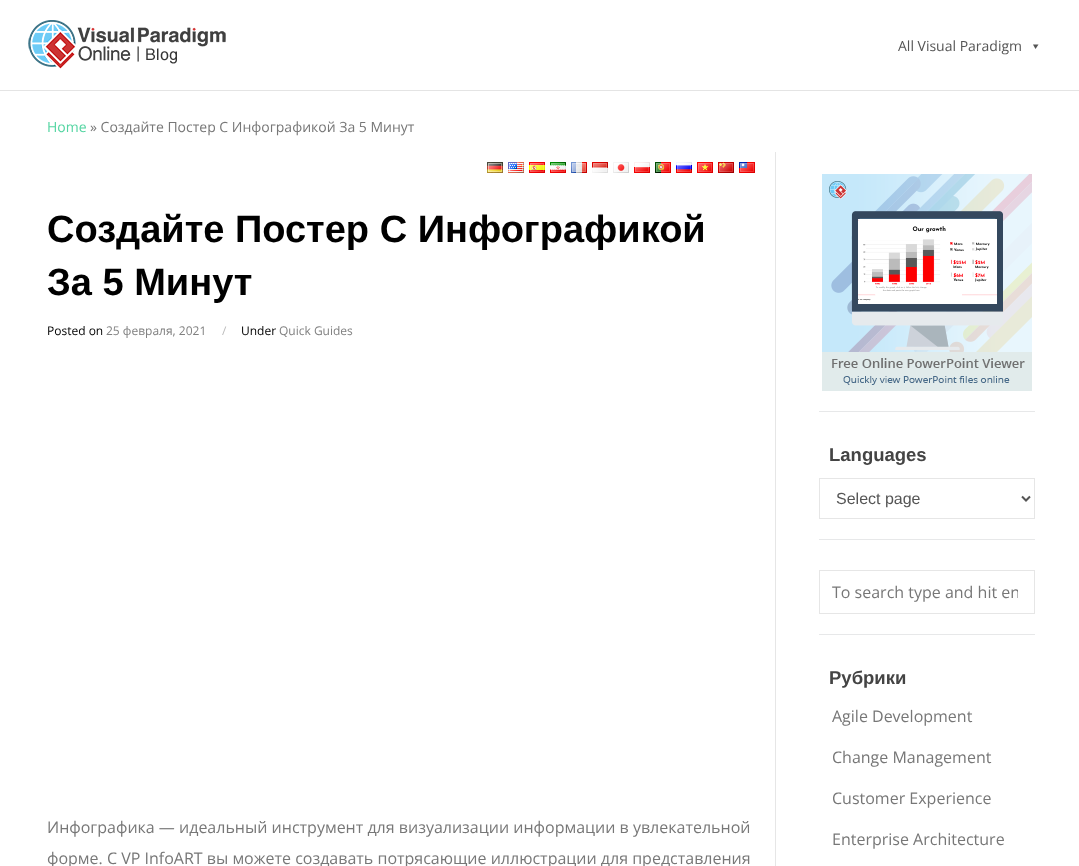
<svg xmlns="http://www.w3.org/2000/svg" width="1079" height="866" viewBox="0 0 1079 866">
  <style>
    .t1 { font: 14px Open Sans; fill: #555; }
    .t2 { font: 14px Open Sans; fill: #54d5a2; }
    .t3 { font: 14px Open Sans; fill: #777; }
    .t4 { font: bold 38px Liberation Sans; fill: #000; }
    .t5 { font: 12px Open Sans; fill: #000; }
    .t6 { font: 12px Open Sans; fill: #808080; }
    .t7 { font: 12px Open Sans; fill: #bbb; }
    .t8 { font: 16px Open Sans; fill: #777; }
    .t9 { font: bold 18.5px Liberation Sans; fill: #444; }
    .t10 { font: 16px Liberation Sans; fill: #555; }
  </style>
  <defs>
    <clipPath id="clip1"><rect x="832" y="581" width="186" height="22"/></clipPath>
  </defs>
  <rect width="100%" height="100%" fill="#fff"/>
  <rect x="0" y="90" width="1079" height="1" fill="#e4e4e4"/>
  <image x="28" y="20" width="198" height="49" href="images/1.png"/>
  <text x="898" y="51" class="t1">All Visual Paradigm</text>
  <path d="M1038.5 44.5L1035.5 49L1033 44.5Z" fill="#555"/>
  <text x="47" y="132" class="t2">Home</text>
  <text x="90" y="132" class="t3">» Создайте Постер С Инфографикой За 5 Минут</text>
  <rect x="775" y="152" width="1" height="714" fill="#e6e6e6"/>
  <image x="487" y="162" width="16" height="11" href="images/2.png"/>
  <image x="508" y="162" width="16" height="11" href="images/3.png"/>
  <image x="529" y="162" width="16" height="11" href="images/4.png"/>
  <image x="550" y="162" width="16" height="11" href="images/5.png"/>
  <image x="571" y="162" width="16" height="11" href="images/6.png"/>
  <image x="592" y="162" width="16" height="11" href="images/7.png"/>
  <image x="613" y="162" width="16" height="11" href="images/8.png"/>
  <image x="634" y="162" width="16" height="11" href="images/9.png"/>
  <image x="655" y="162" width="16" height="11" href="images/10.png"/>
  <image x="676" y="162" width="16" height="11" href="images/11.png"/>
  <image x="697" y="162" width="16" height="11" href="images/12.png"/>
  <image x="718" y="162" width="16" height="11" href="images/13.png"/>
  <image x="739" y="162" width="16" height="11" href="images/14.png"/>
  <text x="47" y="242" class="t4">Создайте Постер С Инфографикой</text>
  <text x="47" y="295" class="t4">За 5 Минут</text>
  <text x="47" y="335" class="t5">Posted on</text>
  <text x="106" y="335" class="t6">25 февраля, 2021</text>
  <text x="222" y="335" class="t7">/</text>
  <text x="241" y="335" class="t5">Under</text>
  <text x="279" y="335" class="t6">Quick Guides</text>
  <text x="47" y="833" class="t8">Инфографика — идеальный инструмент для визуализации информации в увлекательной</text>
  <text x="47" y="864" class="t8">форме. С VP InfoART вы можете создавать потрясающие иллюстрации для представления</text>
  <rect x="819" y="411" width="216" height="1" fill="#e7e8e9"/>
  <image x="822" y="174" width="210" height="217" href="images/15.png"/>
  <rect x="819" y="539" width="216" height="1" fill="#e7e8e9"/>
  <text x="829" y="461" class="t9">Languages</text>
  <rect x="819.5" y="478.5" width="215" height="40" fill="none" stroke="#e6e6e6"/>
  <path d="M1022 496.5L1026 500.5L1030 496.5" fill="none" stroke="#555" stroke-width="2"/>
  <text x="836" y="504" class="t10">Select page</text>
  <rect x="819" y="634" width="216" height="1" fill="#e7e8e9"/>
  <rect x="819.5" y="570.5" width="215" height="43" fill="none" stroke="#e6e6e6"/>
  <g clip-path="url(#clip1)">
    <text x="832" y="598" class="t8">To search type and hit en</text>
  </g>
  <text x="829" y="684" class="t9">Рубрики</text>
  <text x="832" y="722" class="t8">Agile Development</text>
  <text x="832" y="763" class="t8">Change Management</text>
  <text x="832" y="804" class="t8">Customer Experience</text>
  <text x="832" y="845" class="t8">Enterprise Architecture</text>
</svg>
